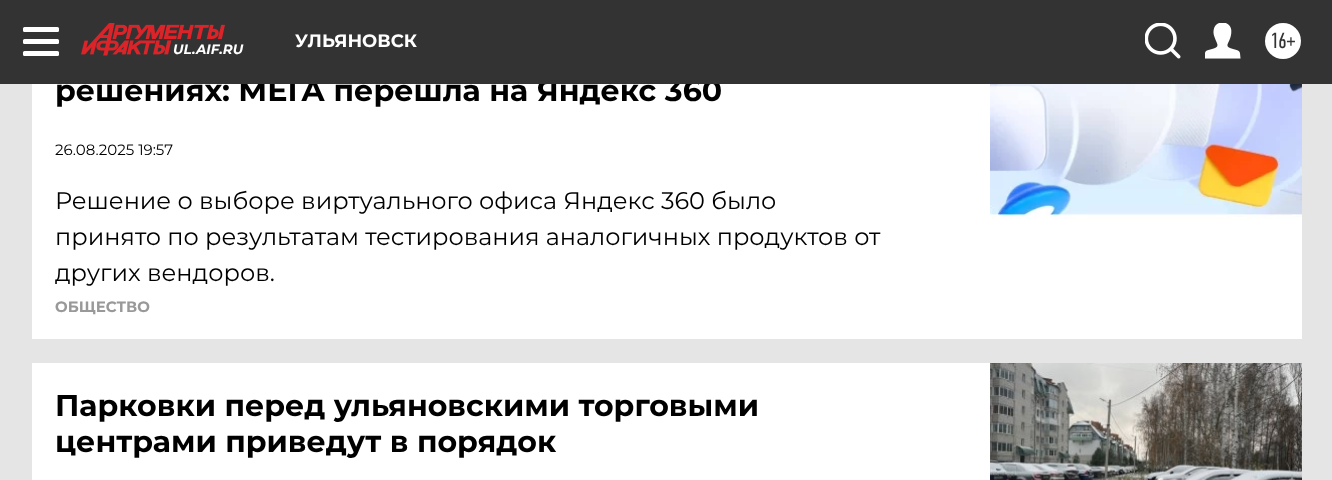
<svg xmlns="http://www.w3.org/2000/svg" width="1332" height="480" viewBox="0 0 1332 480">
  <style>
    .t1 { font: bold 30px Montserrat; fill: #000; }
    .t2 { font: bold 18px Montserrat; fill: #fff; }
    .t3 { font: 22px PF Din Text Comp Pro; fill: #333; }
    .t4 { font: italic bold 13.5px Montserrat; fill: #fff; }
    .t5 { font: 15px Montserrat; fill: #000; }
    .t6 { font: 24px Montserrat; fill: #000; }
    .t7 { font: bold 15px Montserrat; fill: #999; }
  </style>
  <rect width="100%" height="100%" fill="#e5e5e5"/>
  <rect x="32" y="84" width="1270" height="255" fill="#fff"/>
  <text x="55" y="101" class="t1">решениях: МЕГА перешла на Яндекс 360</text>
  <rect x="0" y="0" width="1332" height="84" fill="#333"/>
  <rect x="23" y="27" width="36" height="5" rx="1.5" fill="#fff"/>
  <rect x="23" y="39" width="36" height="5" rx="1.5" fill="#fff"/>
  <rect x="23" y="51" width="36" height="5" rx="1.5" fill="#fff"/>
  <text x="295" y="47" class="t2">УЛЬЯНОВСК</text>
  <image x="1145" y="23" width="36" height="36" href="images/1.png"/>
  <image x="1205" y="23" width="36" height="36" href="images/2.png"/>
  <circle cx="1283" cy="41" r="18" fill="#fff"/>
  <text x="1270" y="48" class="t3">16+</text>
  <image x="81" y="23" width="144" height="33" href="images/3.png"/>
  <text x="173" y="54" class="t4">UL.AIF.RU</text>
  <text x="55" y="155" class="t5">26.08.2025 19:57</text>
  <text x="55" y="209" class="t6">Решение о выборе виртуального офиса Яндекс 360 было</text>
  <text x="55" y="245" class="t6">принято по результатам тестирования аналогичных продуктов от</text>
  <text x="55" y="281" class="t6">других вендоров.</text>
  <image x="990" y="84" width="312" height="135" href="images/4.png"/>
  <text x="55" y="312" class="t7">ОБЩЕСТВО</text>
  <rect x="32" y="363" width="958" height="117" fill="#fff"/>
  <text x="55" y="416" class="t1">Парковки перед ульяновскими торговыми</text>
  <text x="55" y="452" class="t1">центрами приведут в порядок</text>
  <image x="990" y="363" width="312" height="117" href="images/5.png"/>
</svg>
